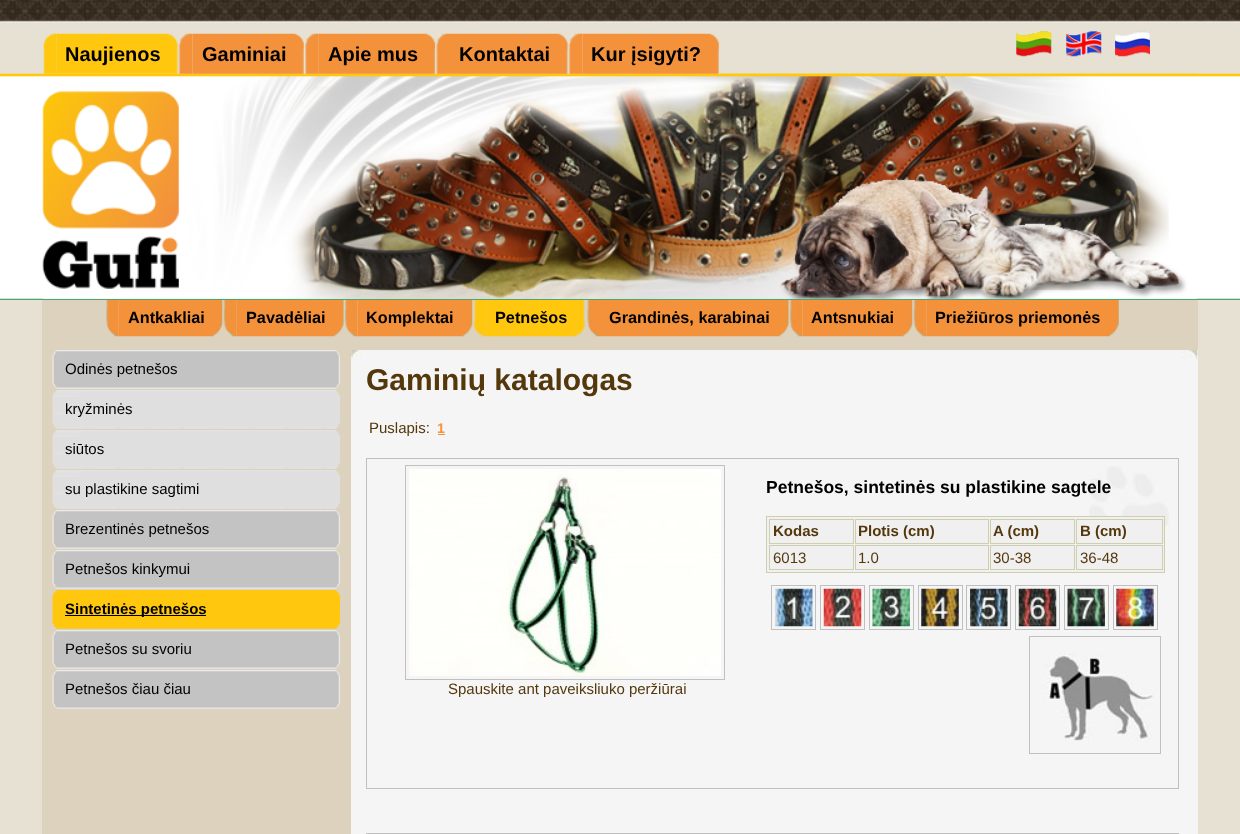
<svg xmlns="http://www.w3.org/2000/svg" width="1240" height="834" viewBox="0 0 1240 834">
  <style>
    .t1 { font: bold 20px Liberation Sans; fill: #000; }
    .t2 { font: bold 16.25px Liberation Sans; fill: #000; }
    .t3 { font: 15px Liberation Sans; fill: #000; }
    .t4 { font: bold 15px Liberation Sans; fill: #000; }
    .t5 { font: bold 30px Liberation Sans; fill: #54380c; }
    .t6 { font: 15px Liberation Sans; fill: #54380c; }
    .t7 { font: bold 14px Liberation Sans; fill: #f4923c; }
    .t8 { font: bold 17.5px Liberation Sans; fill: #000; }
    .t9 { font: bold 15px Liberation Sans; fill: #54380c; }
  </style>
  <rect width="100%" height="100%" fill="#e6e1d2"/>
  <image x="0" y="0" width="1240" height="300" href="images/1.png"/>
  <image x="42" y="73" width="1156" height="226" href="images/15.png"/>
  <image x="42" y="33" width="15" height="41" href="images/2.png"/>
  <image x="56" y="33" width="123" height="41" href="images/3.png"/>
  <text x="65" y="61" class="t1">Naujienos</text>
  <image x="178" y="33" width="15" height="41" href="images/4.png"/>
  <image x="192" y="33" width="113" height="41" href="images/5.png"/>
  <text x="202" y="61" class="t1">Gaminiai</text>
  <image x="305" y="33" width="14" height="41" href="images/6.png"/>
  <image x="318" y="33" width="119" height="41" href="images/7.png"/>
  <text x="328" y="61" class="t1">Apie mus</text>
  <image x="436" y="33" width="14" height="41" href="images/8.png"/>
  <image x="450" y="33" width="119" height="41" href="images/9.png"/>
  <text x="459" y="61" class="t1">Kontaktai</text>
  <image x="568" y="33" width="15" height="41" href="images/10.png"/>
  <image x="582" y="33" width="138" height="41" href="images/11.png"/>
  <text x="591" y="61" class="t1">Kur įsigyti?</text>
  <image x="1016" y="31" width="36" height="26" href="images/12.png"/>
  <image x="1066" y="31" width="36" height="26" href="images/13.png"/>
  <image x="1115" y="31" width="35" height="26" href="images/14.png"/>
  <rect x="42" y="300" width="309" height="534" fill="#dcd2be"/>
  <rect x="351" y="300" width="847" height="50" fill="#dcd2be"/>
  <image x="106" y="300" width="13" height="37" href="images/16.png"/>
  <image x="118" y="300" width="105" height="37" href="images/17.png"/>
  <text x="128" y="323" class="t2">Antkakliai</text>
  <image x="222" y="300" width="15" height="37" href="images/18.png"/>
  <image x="236" y="300" width="108" height="37" href="images/19.png"/>
  <text x="246" y="323" class="t2">Pavadėliai</text>
  <image x="343" y="300" width="15" height="37" href="images/20.png"/>
  <image x="357" y="300" width="116" height="37" href="images/21.png"/>
  <text x="366" y="323" class="t2">Komplektai</text>
  <image x="472" y="300" width="15" height="37" href="images/22.png"/>
  <image x="486" y="300" width="100" height="37" href="images/23.png"/>
  <text x="495" y="323" class="t2">Petnešos</text>
  <image x="587" y="300" width="13" height="37" href="images/24.png"/>
  <image x="600" y="300" width="189" height="37" href="images/25.png"/>
  <text x="609" y="323" class="t2">Grandinės, karabinai</text>
  <image x="788" y="300" width="15" height="37" href="images/26.png"/>
  <image x="802" y="300" width="111" height="37" href="images/27.png"/>
  <text x="811" y="323" class="t2">Antsnukiai</text>
  <image x="912" y="300" width="15" height="37" href="images/18.png"/>
  <image x="926" y="300" width="193" height="37" href="images/28.png"/>
  <text x="935" y="323" class="t2">Priežiūros priemonės</text>
  <image x="52" y="350" width="288" height="39" href="images/29.png"/>
  <text x="65" y="374" class="t3">Odinės petnešos</text>
  <image x="52" y="390" width="288" height="39" href="images/30.png"/>
  <text x="65" y="414" class="t3">kryžminės</text>
  <image x="52" y="430" width="288" height="39" href="images/30.png"/>
  <text x="65" y="454" class="t3">siūtos</text>
  <image x="52" y="470" width="288" height="39" href="images/30.png"/>
  <text x="65" y="494" class="t3">su plastikine sagtimi</text>
  <image x="52" y="510" width="288" height="39" href="images/29.png"/>
  <text x="65" y="534" class="t3">Brezentinės petnešos</text>
  <image x="52" y="550" width="288" height="39" href="images/29.png"/>
  <text x="65" y="574" class="t3">Petnešos kinkymui</text>
  <image x="52" y="590" width="288" height="39" href="images/31.png"/>
  <rect x="65" y="615" width="141" height="1" fill="#000"/>
  <text x="65" y="614" class="t4">Sintetinės petnešos</text>
  <image x="52" y="630" width="288" height="39" href="images/29.png"/>
  <text x="65" y="654" class="t3">Petnešos su svoriu</text>
  <image x="52" y="670" width="288" height="39" href="images/29.png"/>
  <text x="65" y="694" class="t3">Petnešos čiau čiau</text>
  <rect x="351" y="350" width="847" height="484" fill="#f5f5f5"/>
  <image x="351" y="350" width="847" height="10" href="images/32.png"/>
  <text x="366" y="390" class="t5">Gaminių katalogas</text>
  <text x="369" y="433" class="t6">Puslapis:</text>
  <text x="437" y="433" class="t7">1</text>
  <rect x="438" y="434" width="7" height="1" fill="#f4923c"/>
  <image x="1089" y="466" width="80" height="86" href="images/33.png"/>
  <rect x="366.5" y="458.5" width="812" height="330" fill="none" stroke="#c0c0c0"/>
  <text x="766" y="493" class="t8">Petnešos, sintetinės su plastikine sagtele</text>
  <rect x="766.5" y="516.5" width="398" height="56" fill="#f0f0f0" stroke="#cfceaf"/>
  <rect x="769.5" y="519.5" width="84" height="24" fill="none" stroke="#cfceaf"/>
  <text x="773" y="536" class="t9">Kodas</text>
  <rect x="855.5" y="519.5" width="133" height="24" fill="none" stroke="#cfceaf"/>
  <text x="858" y="536" class="t9">Plotis (cm)</text>
  <rect x="990.5" y="519.5" width="84" height="24" fill="none" stroke="#cfceaf"/>
  <text x="993" y="536" class="t9">A (cm)</text>
  <rect x="1076.5" y="519.5" width="86" height="24" fill="none" stroke="#cfceaf"/>
  <text x="1080" y="536" class="t9">B (cm)</text>
  <rect x="769.5" y="545.5" width="84" height="24" fill="none" stroke="#cfceaf"/>
  <text x="773" y="563" class="t6">6013</text>
  <rect x="855.5" y="545.5" width="133" height="24" fill="none" stroke="#cfceaf"/>
  <text x="858" y="563" class="t6">1.0</text>
  <rect x="990.5" y="545.5" width="84" height="24" fill="none" stroke="#cfceaf"/>
  <text x="993" y="563" class="t6">30-38</text>
  <rect x="1076.5" y="545.5" width="86" height="24" fill="none" stroke="#cfceaf"/>
  <text x="1080" y="563" class="t6">36-48</text>
  <rect x="771.5" y="585.5" width="44" height="44" fill="none" stroke="#c0c0c0"/>
  <rect x="820.5" y="585.5" width="44" height="44" fill="none" stroke="#c0c0c0"/>
  <rect x="869.5" y="585.5" width="44" height="44" fill="none" stroke="#c0c0c0"/>
  <rect x="918.5" y="585.5" width="44" height="44" fill="none" stroke="#c0c0c0"/>
  <rect x="966.5" y="585.5" width="44" height="44" fill="none" stroke="#c0c0c0"/>
  <rect x="1015.5" y="585.5" width="44" height="44" fill="none" stroke="#c0c0c0"/>
  <rect x="1064.5" y="585.5" width="44" height="44" fill="none" stroke="#c0c0c0"/>
  <rect x="1113.5" y="585.5" width="44" height="44" fill="none" stroke="#c0c0c0"/>
  <image x="775" y="588" width="38" height="39" href="images/34.png"/>
  <image x="823" y="588" width="39" height="39" href="images/35.png"/>
  <image x="872" y="588" width="38" height="39" href="images/36.png"/>
  <image x="921" y="588" width="38" height="39" href="images/37.png"/>
  <image x="970" y="588" width="38" height="39" href="images/38.png"/>
  <image x="1018" y="588" width="39" height="39" href="images/39.png"/>
  <image x="1067" y="588" width="38" height="39" href="images/40.png"/>
  <image x="1116" y="588" width="38" height="39" href="images/41.png"/>
  <rect x="1029.5" y="636.5" width="131" height="117" fill="none" stroke="#c0c0c0"/>
  <image x="1044" y="653" width="109" height="88" href="images/42.png"/>
  <rect x="405.5" y="465.5" width="319" height="214" fill="none" stroke="#c0c0c0"/>
  <image x="409" y="469" width="312" height="207" href="images/43.png"/>
  <text x="448" y="694" class="t6">Spauskite ant paveiksliuko peržiūrai</text>
  <rect x="366.5" y="833.5" width="812" height="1" fill="none" stroke="#c0c0c0"/>
</svg>
